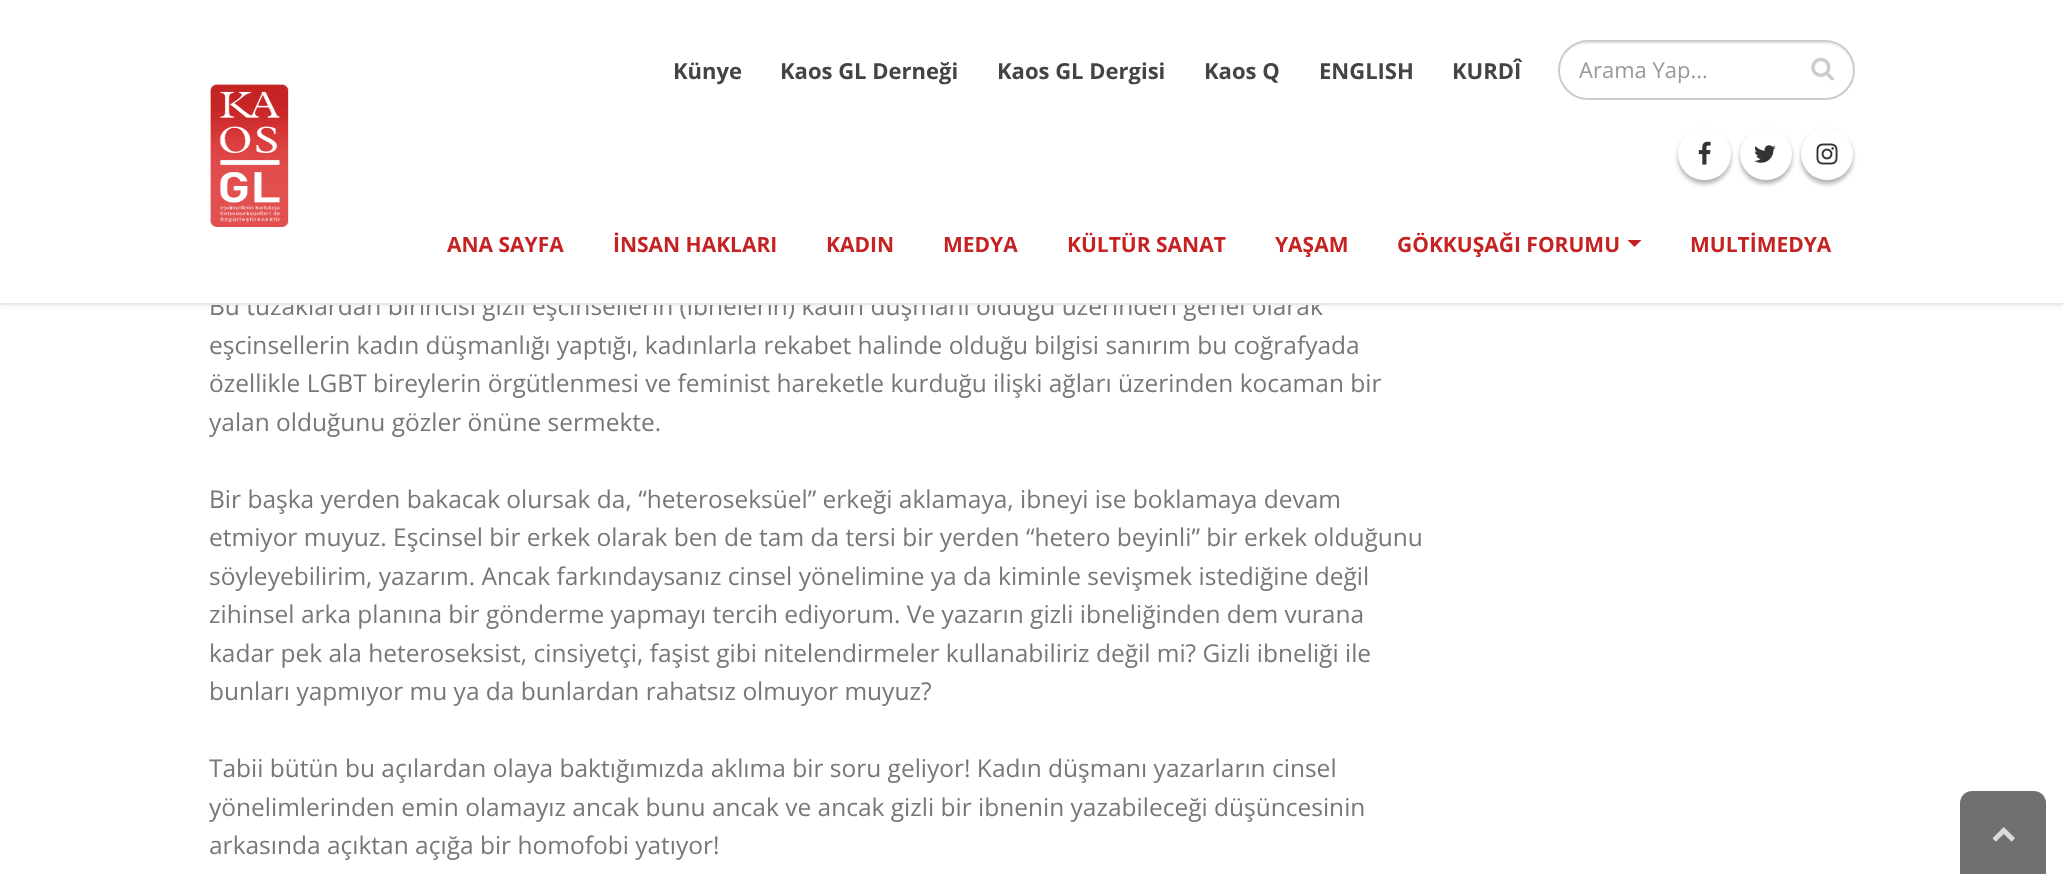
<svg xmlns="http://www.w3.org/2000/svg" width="2063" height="874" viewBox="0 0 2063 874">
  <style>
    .t1 { font: 24.5px Open Sans; fill: #777; }
    .t2 { font: bold 22px Open Sans; fill: #444; }
    .t3 { font: 22px Open Sans; fill: #999; }
    .t4 { font: bold 21px Open Sans; fill: #c52323; }
  </style>
  <rect width="100%" height="100%" fill="#fff"/>
  <rect x="0" y="0" width="2063" height="305" fill="#0000001a" filter="blur(2.5px)"/>
  <text x="209" y="315" class="t1">Bu tuzaklardan birincisi gizli eşcinsellerin (ibnelerin) kadın düşmanı olduğu üzerinden genel olarak</text>
  <rect x="0" y="0" width="2063" height="303" fill="#fff"/>
  <rect x="0" y="303" width="2063" height="2" fill="#e9e9e9"/>
  <image x="210" y="84" width="79" height="143" href="images/1.png"/>
  <text x="673" y="79" class="t2">Künye</text>
  <text x="780" y="79" class="t2">Kaos GL Derneği</text>
  <text x="997" y="79" class="t2">Kaos GL Dergisi</text>
  <text x="1204" y="79" class="t2">Kaos Q</text>
  <text x="1319" y="79" class="t2">ENGLISH</text>
  <text x="1452" y="79" class="t2">KURDÎ</text>
  <path d="M1587 44H1825C1841 44 1852 55 1853 71V70C1853 55 1840 42 1825 42H1587C1572 42 1559 55 1559 70V71C1560 55 1572 44 1587 44Z" fill="#ececec"/>
  <rect x="1559" y="41" width="295" height="58" rx="29" fill="none" stroke="#ccc" stroke-width="2"/>
  <text x="1579" y="78" class="t3">Arama Yap...</text>
  <image x="1811" y="57" width="23" height="24" href="images/2.png"/>
  <rect x="1678" y="131" width="53" height="53" rx="26.5" fill="#0000004d" filter="blur(2px)"/>
  <rect x="1678" y="128" width="53" height="52" rx="26" fill="#fff"/>
  <image x="1698" y="141" width="13" height="24" href="images/3.png"/>
  <rect x="1740" y="131" width="52" height="53" rx="26" fill="#0000004d" filter="blur(2px)"/>
  <circle cx="1766" cy="154" r="26" fill="#fff"/>
  <image x="1754" y="145" width="22" height="18" href="images/4.png"/>
  <rect x="1801" y="131" width="52" height="53" rx="26" fill="#0000004d" filter="blur(2px)"/>
  <circle cx="1827" cy="154" r="26" fill="#fff"/>
  <image x="1816" y="143" width="22" height="22" href="images/5.png"/>
  <text x="447" y="252" class="t4">ANA SAYFA</text>
  <text x="613" y="252" class="t4">İNSAN HAKLARI</text>
  <text x="826" y="252" class="t4">KADIN</text>
  <text x="943" y="252" class="t4">MEDYA</text>
  <text x="1067" y="252" class="t4">KÜLTÜR SANAT</text>
  <text x="1275" y="252" class="t4">YAŞAM</text>
  <text x="1397" y="252" class="t4">GÖKKUŞAĞI FORUMU</text>
  <path d="M1627.5 240H1641.5L1634.5 247Z" fill="#c52323"/>
  <text x="1690" y="252" class="t4">MULTİMEDYA</text>
  <text x="209" y="354" class="t1">eşcinsellerin kadın düşmanlığı yaptığı, kadınlarla rekabet halinde olduğu bilgisi sanırım bu coğrafyada</text>
  <text x="209" y="392" class="t1">özellikle LGBT bireylerin örgütlenmesi ve feminist hareketle kurduğu ilişki ağları üzerinden kocaman bir</text>
  <text x="209" y="431" class="t1">yalan olduğunu gözler önüne sermekte.</text>
  <text x="209" y="508" class="t1">Bir başka yerden bakacak olursak da, “heteroseksüel” erkeği aklamaya, ibneyi ise boklamaya devam</text>
  <text x="209" y="546" class="t1">etmiyor muyuz. Eşcinsel bir erkek olarak ben de tam da tersi bir yerden “hetero beyinli” bir erkek olduğunu</text>
  <text x="209" y="585" class="t1">söyleyebilirim, yazarım. Ancak farkındaysanız cinsel yönelimine ya da kiminle sevişmek istediğine değil</text>
  <text x="209" y="623" class="t1">zihinsel arka planına bir gönderme yapmayı tercih ediyorum. Ve yazarın gizli ibneliğinden dem vurana</text>
  <text x="209" y="662" class="t1">kadar pek ala heteroseksist, cinsiyetçi, faşist gibi nitelendirmeler kullanabiliriz değil mi? Gizli ibneliği ile</text>
  <text x="209" y="700" class="t1">bunları yapmıyor mu ya da bunlardan rahatsız olmuyor muyuz?</text>
  <text x="209" y="777" class="t1">Tabii bütün bu açılardan olaya baktığımızda aklıma bir soru geliyor! Kadın düşmanı yazarların cinsel</text>
  <text x="209" y="816" class="t1">yönelimlerinden emin olamayız ancak bunu ancak ve ancak gizli bir ibnenin yazabileceği düşüncesinin</text>
  <text x="209" y="854" class="t1">arkasında açıktan açığa bir homofobi yatıyor!</text>
  <path d="M1972 791H2034C2040.5 791 2046 796.5 2046 803V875H1960V803C1960 796.5 1965.5 791 1972 791Z" fill="#707070"/>
  <image x="1992" y="827" width="23" height="15" href="images/6.png"/>
</svg>
